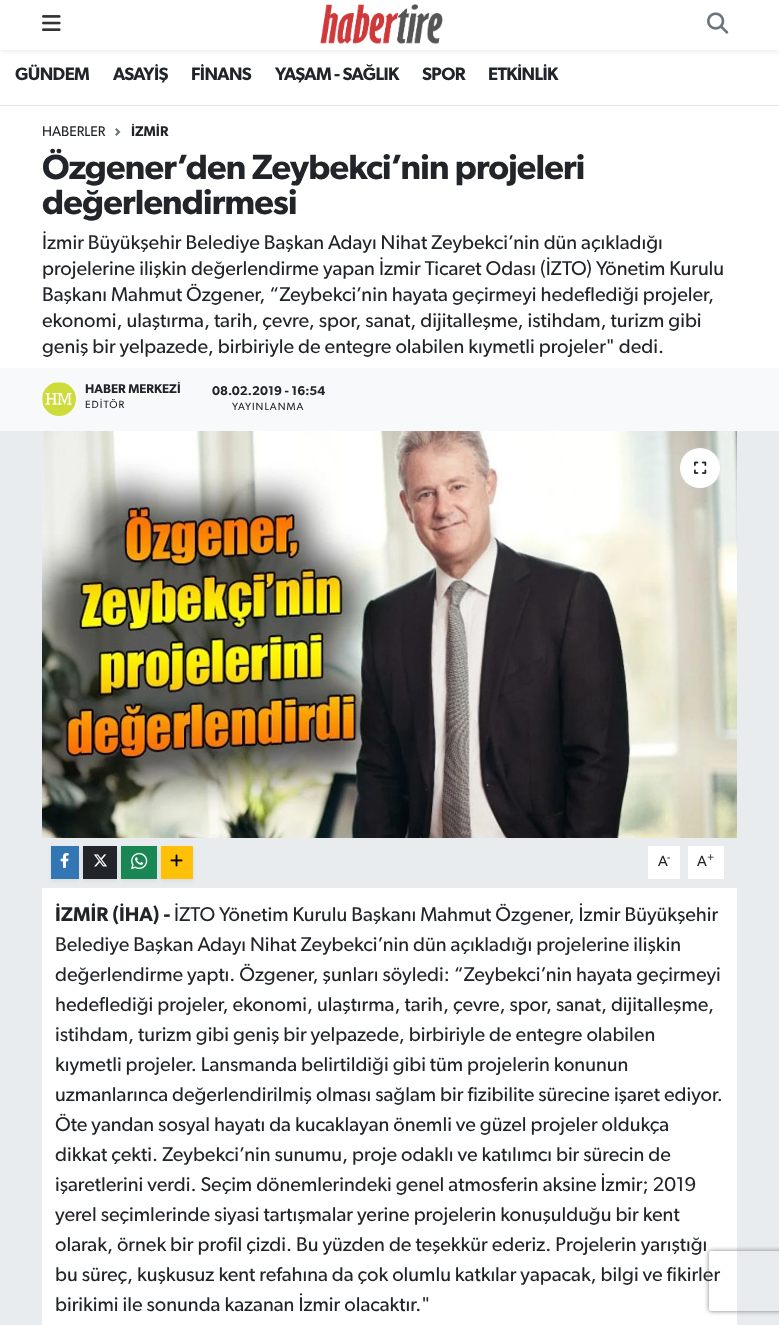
<svg xmlns="http://www.w3.org/2000/svg" width="779" height="1325" viewBox="0 0 779 1325">
  <style>
    .t1 { font: 600 18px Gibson; letter-spacing: -0.6px; fill: #212529; }
    .t2 { font: 14px Gibson; fill: #212529; }
    .t3 { font: 600 14px Gibson; fill: #212529; }
    .t4 { font: 600 35px Gibson; letter-spacing: -0.8px; fill: #212529; }
    .t5 { font: 20px Gibson; fill: #212529; }
    .t6 { font: 600 12.75px Gibson; fill: #212529; }
    .t7 { font: 10.5px Gibson; letter-spacing: 1px; fill: #212529; }
    .t8 { font: 15px Gibson; fill: #212529; }
    .t9 { font: 11px Gibson; fill: #212529; }
    .t10 { font: 600 20px Gibson; fill: #212529; }
  </style>
  <defs>
    <clipPath id="clip1"><path d="M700 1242H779V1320H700ZM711 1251H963C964 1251 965 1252 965 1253V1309C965 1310 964 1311 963 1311H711C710 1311 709 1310 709 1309V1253C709 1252 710 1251 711 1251Z" clip-rule="evenodd"/></clipPath>
  </defs>
  <rect width="100%" height="100%" fill="#e9ecef"/>
  <rect x="0" y="50" width="779" height="55" fill="#fff"/>
  <rect x="0" y="2" width="779" height="50" fill="#00000012" filter="blur(2px)"/>
  <rect x="0" y="0" width="779" height="50" fill="#fff"/>
  <image x="42" y="15" width="19" height="16" href="images/1.png"/>
  <image x="320" y="4" width="123" height="40" href="images/2.png"/>
  <image x="707" y="12" width="22" height="22" href="images/3.png"/>
  <rect x="0" y="105" width="779" height="1" fill="#e6e6e6"/>
  <text x="15" y="80" class="t1">GÜNDEM</text>
  <text x="113" y="80" class="t1">ASAYİŞ</text>
  <text x="191" y="80" class="t1">FİNANS</text>
  <text x="275" y="80" class="t1">YAŞAM - SAĞLIK</text>
  <text x="422" y="80" class="t1">SPOR</text>
  <text x="488" y="80" class="t1">ETKİNLİK</text>
  <rect x="0" y="106" width="779" height="262" fill="#fff"/>
  <text x="42" y="136" class="t2">HABERLER</text>
  <image x="115" y="128" width="6" height="8" href="images/4.png"/>
  <text x="131" y="136" class="t3">İZMİR</text>
  <text x="42" y="179" class="t4">Özgener’den Zeybekci’nin projeleri</text>
  <text x="42" y="214" class="t4">değerlendirmesi</text>
  <text x="42" y="249" class="t5">İzmir Büyükşehir Belediye Başkan Adayı Nihat Zeybekci’nin dün açıkladığı</text>
  <text x="42" y="275" class="t5">projelerine ilişkin değerlendirme yapan İzmir Ticaret Odası (İZTO) Yönetim Kurulu</text>
  <text x="42" y="301" class="t5">Başkanı Mahmut Özgener, “Zeybekci’nin hayata geçirmeyi hedeflediği projeler,</text>
  <text x="42" y="327" class="t5">ekonomi, ulaştırma, tarih, çevre, spor, sanat, dijitalleşme, istihdam, turizm gibi</text>
  <text x="42" y="353" class="t5">geniş bir yelpazede, birbiriyle de entegre olabilen kıymetli projeler" dedi.</text>
  <rect x="0" y="368" width="779" height="63" fill="#f8f9fa"/>
  <image x="42" y="382" width="34" height="34" href="images/5.png"/>
  <text x="85" y="393" class="t6">HABER MERKEZİ</text>
  <text x="85" y="408" class="t7">EDİTÖR</text>
  <text x="212" y="395" class="t6">08.02.2019 - 16:54</text>
  <text x="232" y="410" class="t7">YAYINLANMA</text>
  <image x="42" y="431" width="695" height="407" href="images/6.png"/>
  <circle cx="700" cy="468" r="20" fill="#fff"/>
  <image x="694" y="461" width="13" height="13" href="images/7.png"/>
  <rect x="51" y="848" width="28" height="33" fill="#00000012" filter="blur(2px)"/>
  <rect x="51" y="846" width="28" height="33" fill="#3276b3"/>
  <image x="60" y="853" width="9" height="15" href="images/8.png"/>
  <rect x="83" y="848" width="34" height="33" fill="#00000012" filter="blur(2px)"/>
  <rect x="83" y="846" width="34" height="33" fill="#212529"/>
  <image x="93" y="854" width="14" height="13" href="images/9.png"/>
  <rect x="121" y="848" width="36" height="33" fill="#00000012" filter="blur(2px)"/>
  <rect x="121" y="846" width="36" height="33" fill="#198754"/>
  <image x="131" y="852" width="17" height="18" href="images/10.png"/>
  <rect x="161" y="848" width="32" height="33" fill="#00000012" filter="blur(2px)"/>
  <rect x="161" y="846" width="32" height="33" fill="#ffc107"/>
  <image x="170" y="854" width="13" height="13" href="images/11.png"/>
  <rect x="648" y="846" width="32" height="33" fill="#fff"/>
  <text x="658" y="866" class="t8">A</text>
  <text x="667" y="861" class="t9">-</text>
  <rect x="688" y="846" width="36" height="33" fill="#fff"/>
  <text x="697" y="866" class="t8">A</text>
  <text x="707" y="861" class="t9">+</text>
  <rect x="42" y="888" width="695" height="437" fill="#fff"/>
  <text x="55" y="921" class="t10">İZMİR (İHA) -</text>
  <text x="174" y="921" class="t5">İZTO Yönetim Kurulu Başkanı Mahmut Özgener, İzmir Büyükşehir</text>
  <text x="55" y="951" class="t5">Belediye Başkan Adayı Nihat Zeybekci’nin dün açıkladığı projelerine ilişkin</text>
  <text x="55" y="981" class="t5">değerlendirme yaptı. Özgener, şunları söyledi: “Zeybekci’nin hayata geçirmeyi</text>
  <text x="55" y="1011" class="t5">hedeflediği projeler, ekonomi, ulaştırma, tarih, çevre, spor, sanat, dijitalleşme,</text>
  <text x="55" y="1041" class="t5">istihdam, turizm gibi geniş bir yelpazede, birbiriyle de entegre olabilen</text>
  <text x="55" y="1071" class="t5">kıymetli projeler. Lansmanda belirtildiği gibi tüm projelerin konunun</text>
  <text x="55" y="1101" class="t5">uzmanlarınca değerlendirilmiş olması sağlam bir fizibilite sürecine işaret ediyor.</text>
  <text x="55" y="1131" class="t5">Öte yandan sosyal hayatı da kucaklayan önemli ve güzel projeler oldukça</text>
  <text x="55" y="1161" class="t5">dikkat çekti. Zeybekci’nin sunumu, proje odaklı ve katılımcı bir sürecin de</text>
  <text x="55" y="1191" class="t5">işaretlerini verdi. Seçim dönemlerindeki genel atmosferin aksine İzmir; 2019</text>
  <text x="55" y="1221" class="t5">yerel seçimlerinde siyasi tartışmalar yerine projelerin konuşulduğu bir kent</text>
  <text x="55" y="1251" class="t5">olarak, örnek bir profil çizdi. Bu yüzden de teşekkür ederiz. Projelerin yarıştığı</text>
  <text x="55" y="1281" class="t5">bu süreç, kuşkusuz kent refahına da çok olumlu katkılar yapacak, bilgi ve fikirler</text>
  <text x="55" y="1311" class="t5">birikimi ile sonunda kazanan İzmir olacaktır."</text>
  <g clip-path="url(#clip1)">
    <rect x="709" y="1251" width="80" height="60" rx="2" fill="#808080" filter="blur(2.5px)"/>
  </g>
</svg>
